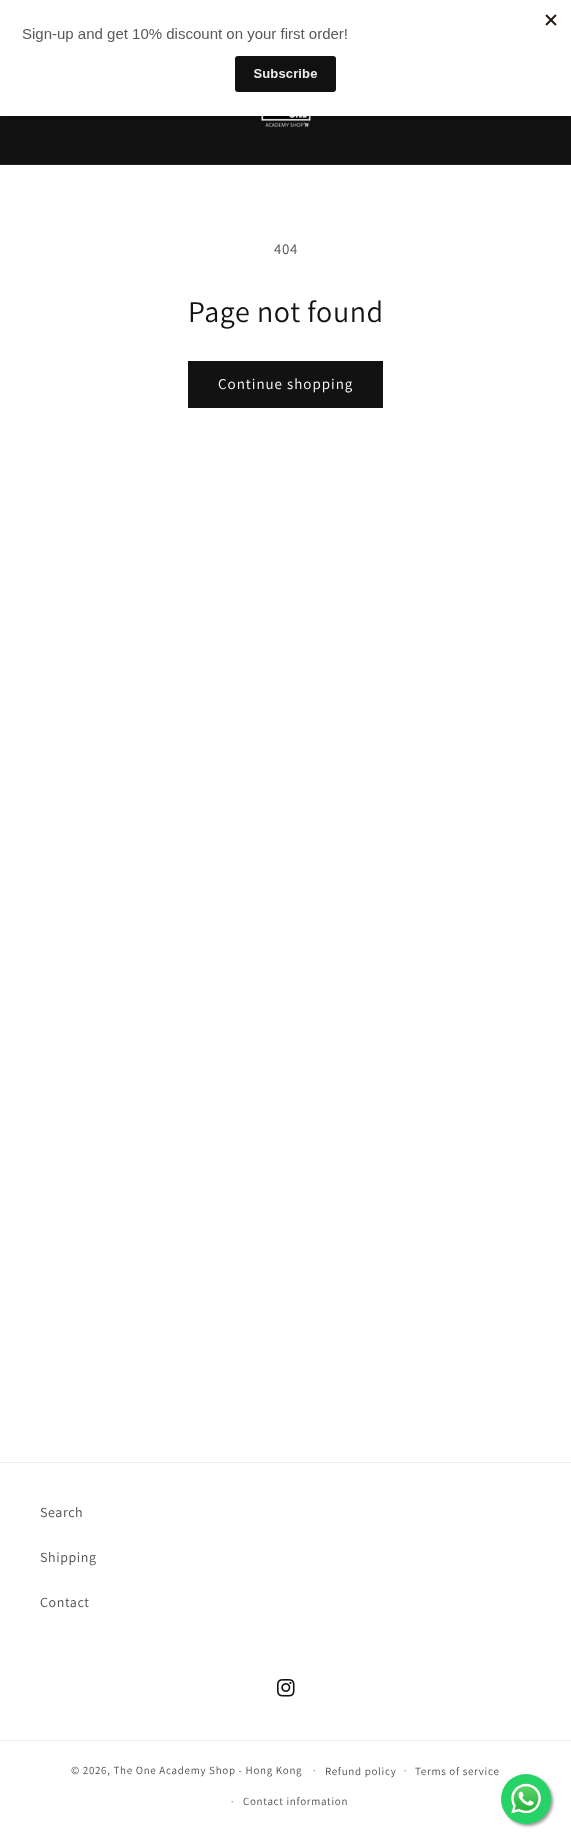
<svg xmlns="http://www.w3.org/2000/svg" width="571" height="1844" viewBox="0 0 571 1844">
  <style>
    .t1 { font: 15px Assistant; letter-spacing: 0.6px; fill: #4d4d4d; }
    .t2 { font: 30px Assistant; letter-spacing: 0.6px; fill: #121212; }
    .t3 { font: 15px Assistant; letter-spacing: 1px; fill: #fff; }
    .t4 { font: 14px Assistant; letter-spacing: 0.6px; fill: #4d4d4d; }
    .t5 { font: 11px Assistant; letter-spacing: 0.7px; fill: #4d4d4d; }
    .t6 { font: 10px Assistant; letter-spacing: 0.7px; fill: #4d4d4d; }
  </style>
  <rect width="100%" height="100%" fill="#fff"/>
  <rect x="0" y="116" width="571" height="48" fill="#121212"/>
  <image x="261" y="116" width="50" height="12" href="images/2.png"/>
  <rect x="0" y="3" width="571" height="116" fill="#00000033" filter="blur(3px)"/>
  <rect x="0" y="0" width="571" height="116" fill="#fff"/>
  <image x="22" y="14" width="535" height="78" href="images/1.png"/>
  <rect x="0" y="164" width="571" height="1" fill="#252525"/>
  <text x="274" y="254" class="t1">404</text>
  <text x="188" y="322" class="t2">Page not found</text>
  <rect x="188" y="361" width="195" height="47" fill="#121212"/>
  <text x="218" y="389" class="t3">Continue shopping</text>
  <rect x="0" y="1462" width="571" height="1" fill="#ececec"/>
  <text x="40" y="1517" class="t4">Search</text>
  <text x="40" y="1562" class="t4">Shipping</text>
  <text x="40" y="1607" class="t4">Contact</text>
  <image x="277" y="1679" width="18" height="18" href="images/3.png"/>
  <rect x="0" y="1740" width="571" height="1" fill="#ececec"/>
  <text x="71" y="1774" class="t5">© 2026, The One Academy Shop - Hong Kong</text>
  <text x="313" y="1774" class="t6">·</text>
  <text x="325" y="1775" class="t5">Refund policy</text>
  <text x="404" y="1774" class="t6">·</text>
  <text x="415" y="1775" class="t5">Terms of service</text>
  <text x="231" y="1805" class="t6">·</text>
  <text x="243" y="1805" class="t5">Contact information</text>
  <rect x="503" y="1776" width="50" height="50" rx="25" fill="#999" filter="blur(1.5px)"/>
  <circle cx="526" cy="1799" r="25" fill="#25d366"/>
  <image x="511" y="1783" width="30" height="31" href="images/4.png"/>
</svg>
